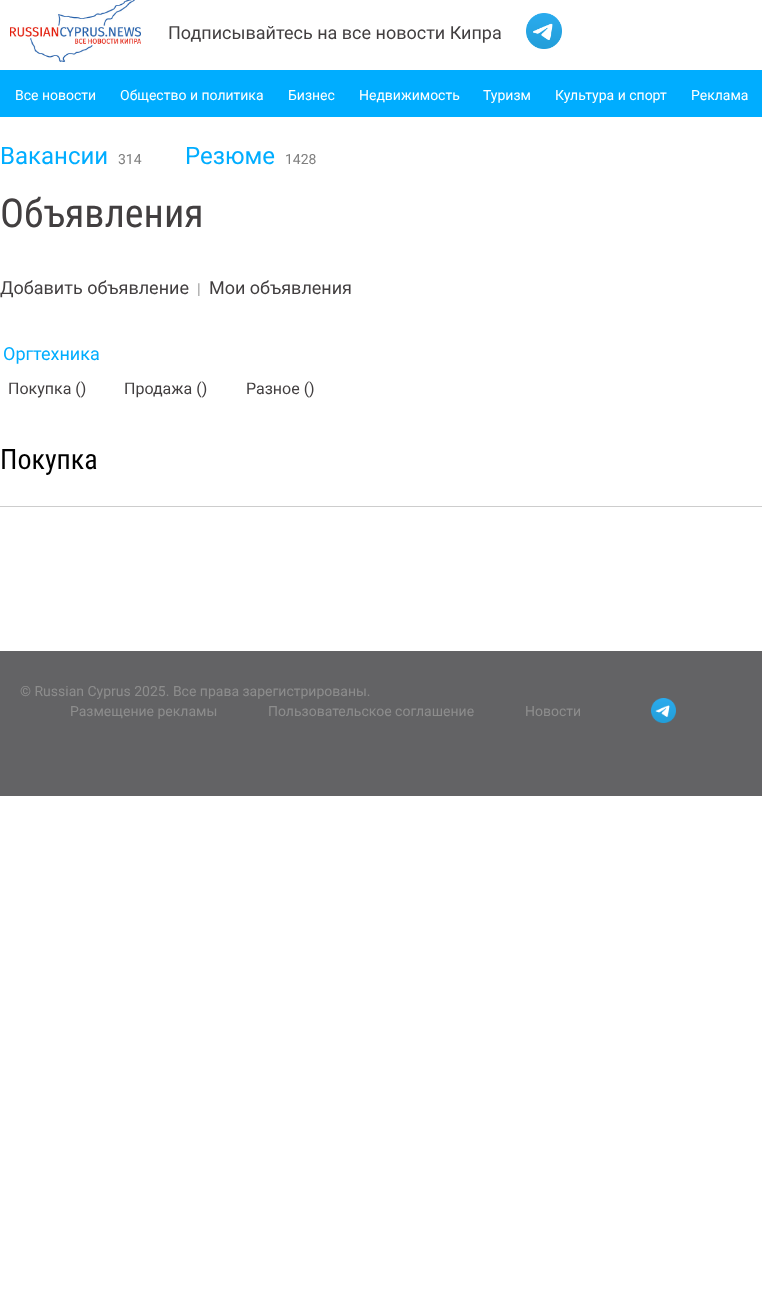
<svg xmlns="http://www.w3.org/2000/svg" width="762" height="1308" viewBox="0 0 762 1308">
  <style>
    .t1 { font: 18px Roboto; fill: #423f40; }
    .t2 { font: 14px Roboto; fill: #fff; }
    .t3 { font: 24px Roboto; fill: #00adff; }
    .t4 { font: 14px Roboto; fill: #7e7e7e; }
    .t5 { font: 40px Roboto Condensed; fill: #423f40; }
    .t6 { font: 15px Roboto; fill: #999; }
    .t7 { font: 18px Roboto; fill: #00adff; }
    .t8 { font: 16px Roboto; fill: #423f40; }
    .t9 { font: 28px Roboto Condensed; fill: #000; }
    .t10 { font: 14px Roboto; fill: #8d8d8d; }
  </style>
  <rect width="100%" height="100%" fill="#fff"/>
  <rect x="0" y="70" width="762" height="47" fill="#00adff"/>
  <image x="10" y="0" width="131" height="62" href="images/1.png"/>
  <text x="168" y="39" class="t1">Подписывайтесь на все новости Кипра</text>
  <image x="526" y="13" width="36" height="36" href="images/2.png"/>
  <text x="15" y="100" class="t2">Все новости</text>
  <text x="120" y="100" class="t2">Общество и политика</text>
  <text x="288" y="100" class="t2">Бизнес</text>
  <text x="359" y="100" class="t2">Недвижимость</text>
  <text x="483" y="100" class="t2">Туризм</text>
  <text x="555" y="100" class="t2">Культура и спорт</text>
  <text x="691" y="100" class="t2">Реклама</text>
  <text x="0" y="164" class="t3">Вакансии</text>
  <text x="118" y="164" class="t4">314</text>
  <text x="185" y="164" class="t3">Резюме</text>
  <text x="285" y="164" class="t4">1428</text>
  <text x="0" y="227" class="t5">Объявления</text>
  <text x="0" y="294" class="t1">Добавить объявление</text>
  <text x="197" y="294" class="t6">|</text>
  <text x="209" y="294" class="t1">Мои объявления</text>
  <text x="3" y="360" class="t7">Оргтехника</text>
  <text x="8" y="394" class="t8">Покупка ()</text>
  <text x="124" y="394" class="t8">Продажа ()</text>
  <text x="246" y="394" class="t8">Разное ()</text>
  <rect x="0" y="506" width="762" height="1" fill="#cdcdcd"/>
  <text x="0" y="469" class="t9">Покупка</text>
  <rect x="0" y="651" width="762" height="145" fill="#636365"/>
  <text x="20" y="696" class="t10">© Russian Cyprus 2025. Все права зарегистрированы.</text>
  <text x="70" y="716" class="t10">Размещение рекламы</text>
  <text x="268" y="716" class="t10">Пользовательское соглашение</text>
  <text x="525" y="716" class="t10">Новости</text>
  <image x="651" y="698" width="25" height="25" href="images/3.png"/>
</svg>
